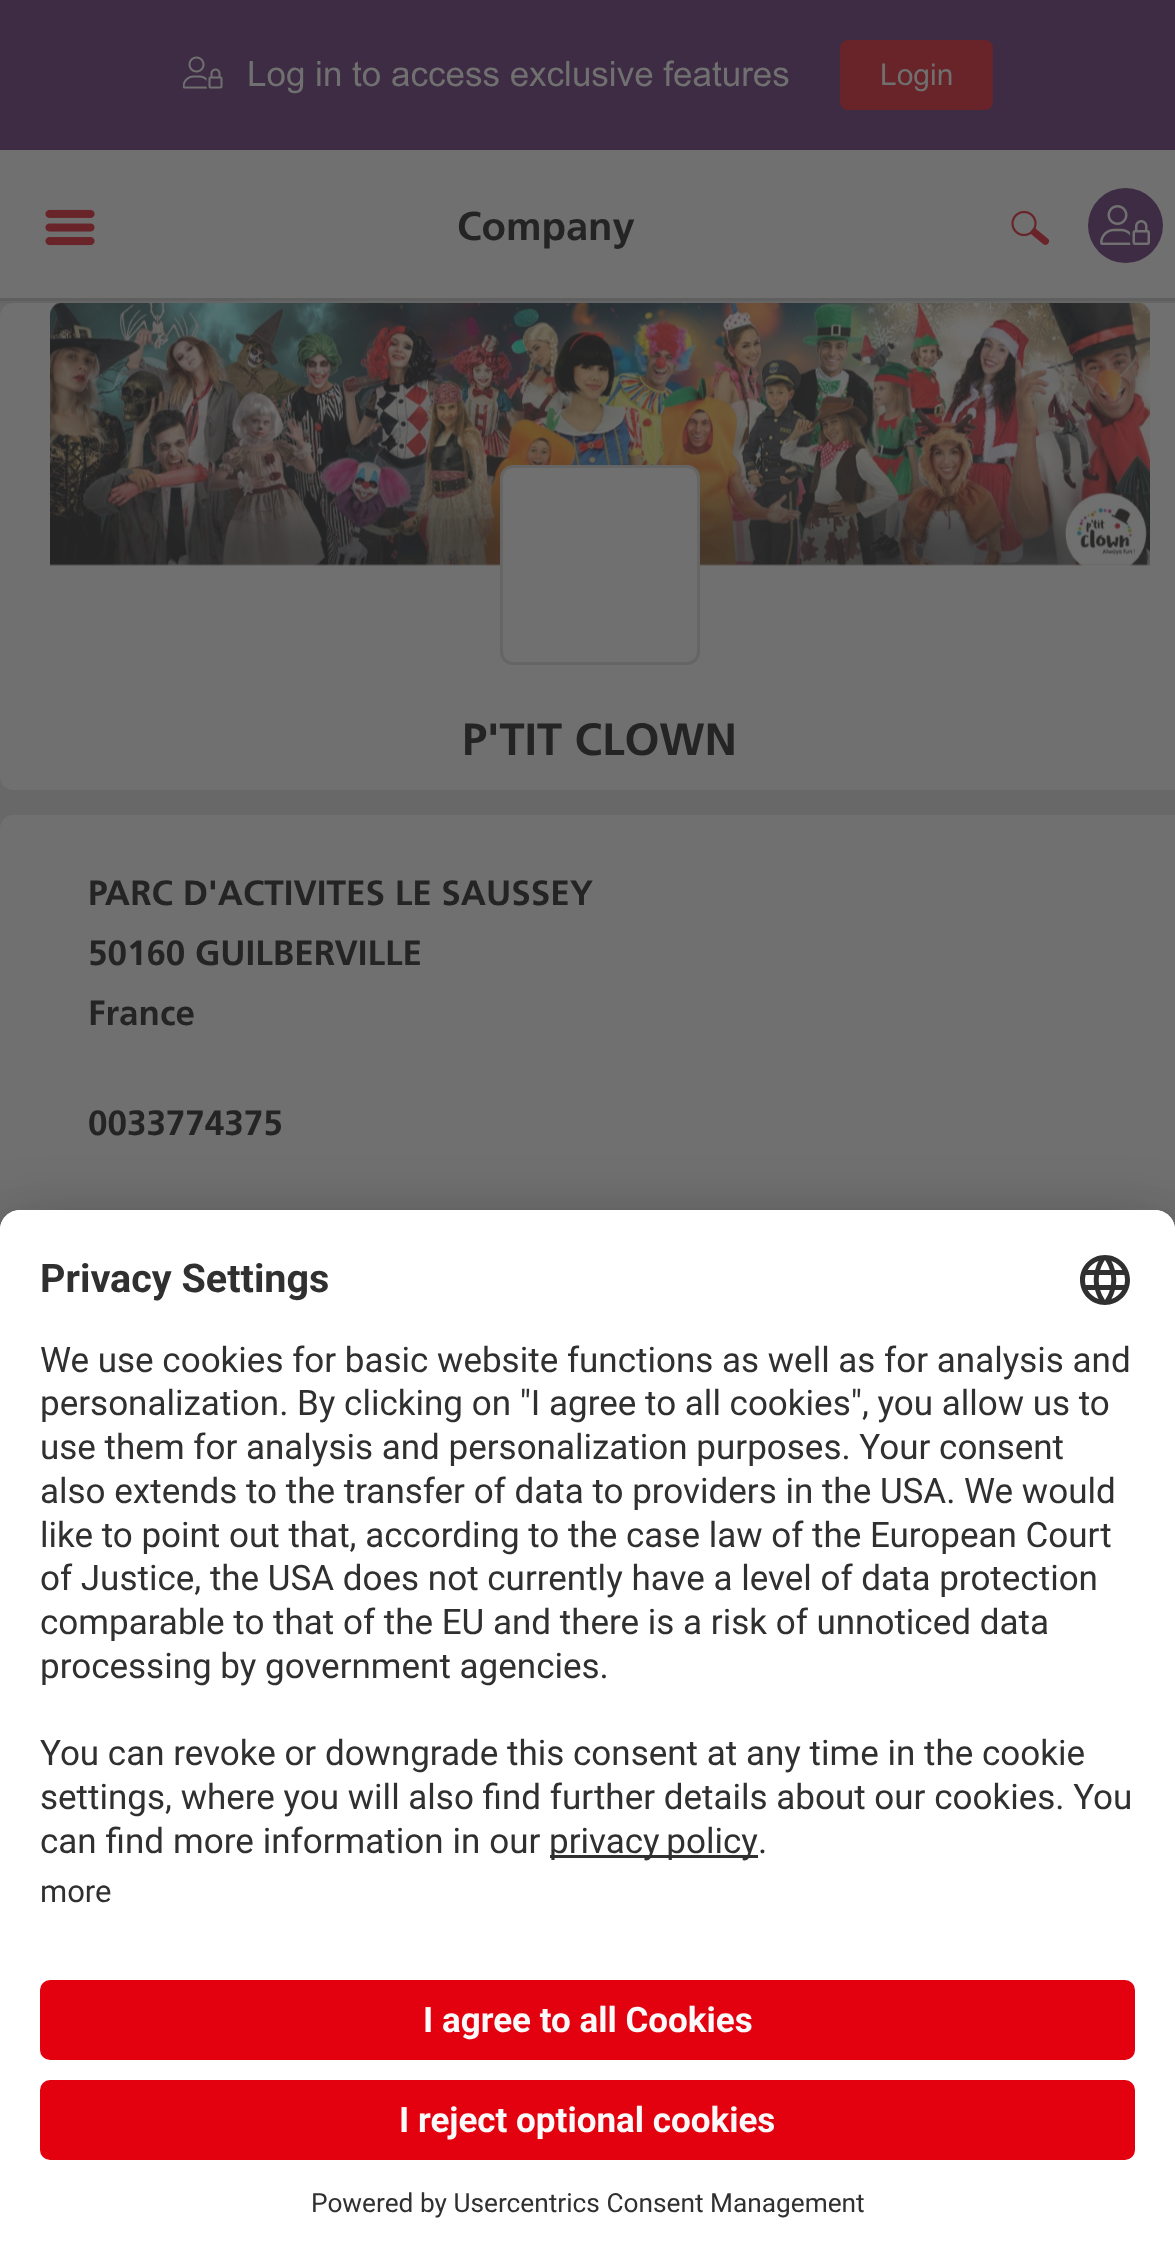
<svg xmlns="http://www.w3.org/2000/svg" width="1175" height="2260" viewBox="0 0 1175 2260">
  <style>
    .t1 { font: 35px Arial; fill: #707070; }
    .t2 { font: 30px Arial; fill: #707070; }
    .t3 { font: bold 40px 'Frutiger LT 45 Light'; fill: #242424; }
    .t4 { font: bold 45px 'Frutiger LT 45 Light'; fill: #242424; }
    .t5 { font: bold 35px 'Frutiger LT 45 Light'; fill: #242424; }
    .t6 { font: bold 39.5px Roboto; fill: #303030; }
    .t7 { font: 35px Roboto; fill: #303030; }
    .t8 { font: 31px Roboto; fill: #303030; }
    .t9 { font: bold 35px Roboto; fill: #fafafa; }
    .t10 { font: 26.25px Roboto; fill: #303030; }
  </style>
  <rect width="100%" height="100%" fill="#707070"/>
  <rect x="0" y="0" width="1175" height="150" fill="#3e2c44"/>
  <image x="183" y="56" width="40" height="33" href="images/1.png"/>
  <text x="247" y="86" class="t1">Log in to access exclusive features</text>
  <rect x="840" y="40" width="153" height="70" rx="8" fill="#682428"/>
  <text x="880" y="85" class="t2">Login</text>
  <rect x="0" y="298" width="1175" height="3" fill="#5f5f5f"/>
  <image x="45" y="209" width="50" height="37" href="images/2.png"/>
  <text x="457" y="240" class="t3">Company</text>
  <image x="1011" y="210" width="39" height="35" href="images/3.png"/>
  <circle cx="1125.5" cy="225.5" r="37.5" fill="#3e2c44"/>
  <image x="1100" y="205" width="50" height="40" href="images/4.png"/>
  <rect x="0" y="301" width="1175" height="2" fill="#656565"/>
  <rect x="0" y="303" width="1175" height="525" fill="#686868"/>
  <path d="M13 303H1175V790H13C6 790 0 784 0 777V316C0 309 6 303 13 303Z" fill="#707070"/>
  <path d="M63 303H1137C1144 303 1150 309 1150 316V565H50V316C50 309 56 303 63 303Z" fill="#616161"/>
  <image x="50" y="303" width="1100" height="263" href="images/5.png"/>
  <rect x="501.5" y="466.5" width="197" height="197" rx="11.5" fill="#707070" stroke="#656565" stroke-width="3"/>
  <text x="462" y="755" class="t4">P'TIT CLOWN</text>
  <path d="M13 815H1175V2260H0V828C0 821 6 815 13 815Z" fill="#707070"/>
  <text x="88" y="905" class="t5">PARC D'ACTIVITES LE SAUSSEY</text>
  <text x="88" y="965" class="t5">50160 GUILBERVILLE</text>
  <text x="88" y="1025" class="t5">France</text>
  <text x="88" y="1135" class="t5">0033774375</text>
  <rect x="0" y="1260" width="1175" height="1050" rx="20" fill="#0000004d" filter="blur(35px)"/>
  <rect x="0" y="1223" width="1175" height="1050" rx="20" fill="#00000038" filter="blur(32.5px)"/>
  <path d="M20 1210H1155C1166 1210 1175 1219 1175 1230V2260H0V1230C0 1219 9 1210 20 1210Z" fill="#fff"/>
  <path d="M20 1210H1155C1166 1210 1175 1219 1175 1230V1950H0V1230C0 1219 9 1210 20 1210Z" fill="#fff"/>
  <text x="40" y="1292" class="t6">Privacy Settings</text>
  <image x="1080" y="1255" width="50" height="50" href="images/6.png"/>
  <text x="40" y="1372" class="t7">We use cookies for basic website functions as well as for analysis and</text>
  <text x="40" y="1415" class="t7">personalization. By clicking on "I agree to all cookies", you allow us to</text>
  <text x="40" y="1459" class="t7">use them for analysis and personalization purposes. Your consent</text>
  <text x="40" y="1503" class="t7">also extends to the transfer of data to providers in the USA. We would</text>
  <text x="40" y="1547" class="t7">like to point out that, according to the case law of the European Court</text>
  <text x="40" y="1590" class="t7">of Justice, the USA does not currently have a level of data protection</text>
  <text x="40" y="1634" class="t7">comparable to that of the EU and there is a risk of unnoticed data</text>
  <text x="40" y="1678" class="t7">processing by government agencies.</text>
  <text x="40" y="1765" class="t7">You can revoke or downgrade this consent at any time in the cookie</text>
  <text x="40" y="1809" class="t7">settings, where you will also find further details about our cookies. You</text>
  <text x="40" y="1853" word-spacing="0.25" class="t7">can find more information in our</text>
  <rect x="550" y="1855" width="208" height="3" fill="#303030"/>
  <text x="549" y="1853" word-spacing="-2" class="t7">privacy policy</text>
  <text x="758" y="1853" class="t7">.</text>
  <text x="40" y="1902" class="t8">more</text>
  <rect x="40" y="1980" width="1095" height="80" rx="10" fill="#e3000f"/>
  <text x="423" y="2032" class="t9">I agree to all Cookies</text>
  <rect x="40" y="2080" width="1095" height="80" rx="10" fill="#e3000f"/>
  <text x="399" y="2132" class="t9">I reject optional cookies</text>
  <text x="311" y="2212" class="t10">Powered by Usercentrics Consent Management</text>
</svg>
